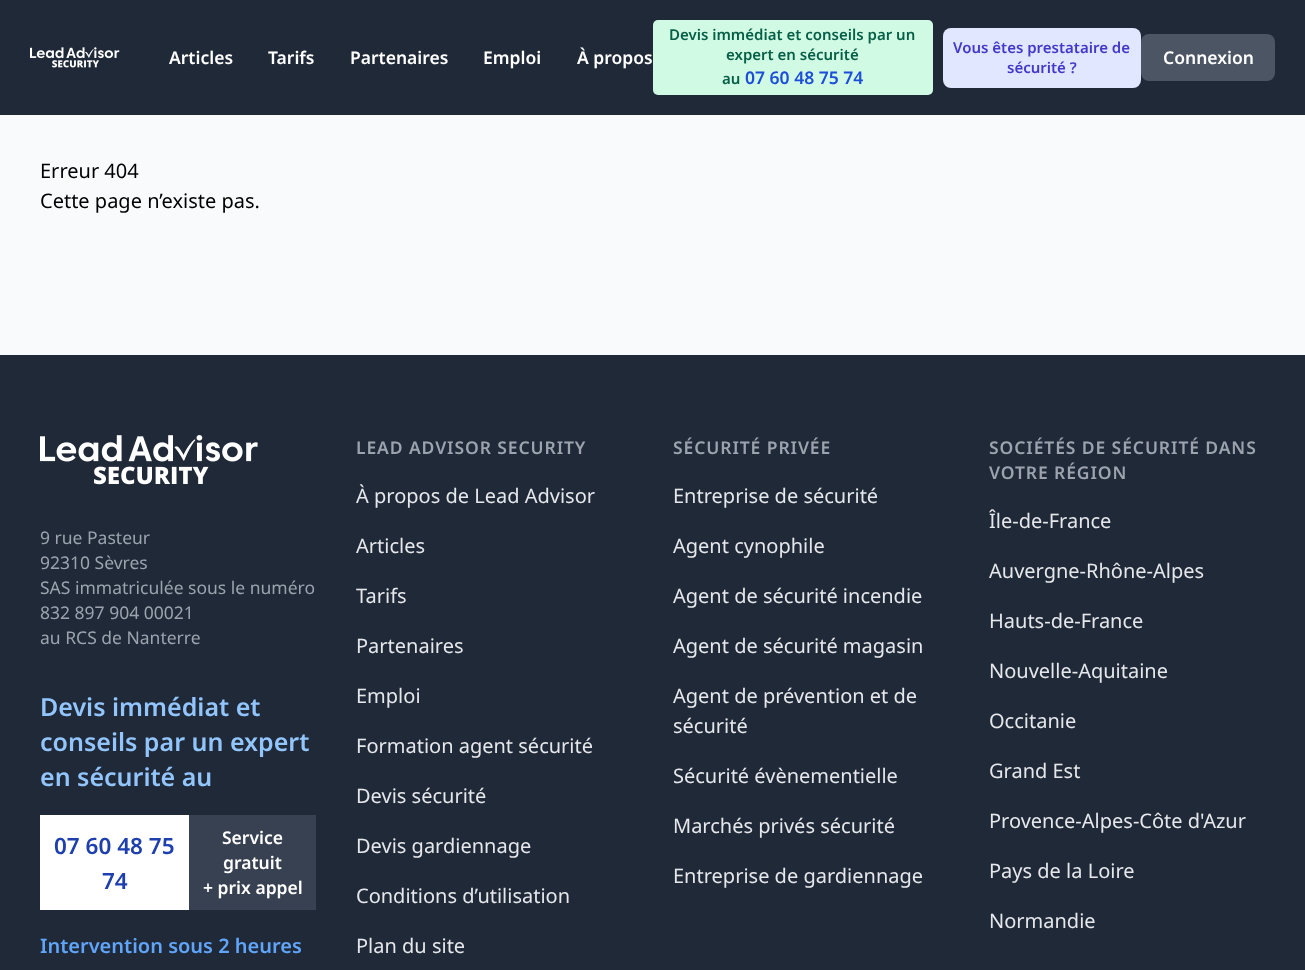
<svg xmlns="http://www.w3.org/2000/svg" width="1305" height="970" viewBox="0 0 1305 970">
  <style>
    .t1 { font: 600 17.5px Noto Sans; fill: #fff; }
    .t2 { font: 600 15px Noto Sans; fill: #065f46; }
    .t3 { font: 600 17.5px Noto Sans; fill: #1d4ed8; }
    .t4 { font: 600 15px Noto Sans; fill: #4338ca; }
    .t5 { font: 20px Noto Sans; fill: #000; }
    .t6 { font: 17.5px Noto Sans; fill: #9ca3af; }
    .t7 { font: 600 25px Noto Sans; fill: #93c5fd; }
    .t8 { font: 600 22.5px Noto Sans; fill: #1e40af; }
    .t9 { font: 600 20px Noto Sans; fill: #60a5fa; }
    .t10 { font: 600 17.5px Noto Sans; letter-spacing: 0.9px; fill: #9ca3af; }
    .t11 { font: 20px Noto Sans; fill: #e5e7eb; }
  </style>
  <rect width="100%" height="100%" fill="#1f2937"/>
  <image x="30" y="47" width="90" height="21" href="images/1.png"/>
  <text x="169" y="64" class="t1">Articles</text>
  <text x="268" y="64" class="t1">Tarifs</text>
  <text x="350" y="64" class="t1">Partenaires</text>
  <text x="483" y="64" class="t1">Emploi</text>
  <text x="577" y="64" class="t1">À propos</text>
  <rect x="653" y="20" width="280" height="75" rx="5" fill="#d1fae5"/>
  <text x="669" y="40" class="t2">Devis immédiat et conseils par un</text>
  <text x="726" y="60" class="t2">expert en sécurité</text>
  <text x="722" y="84" class="t2">au</text>
  <text x="745" y="84" class="t3">07 60 48 75 74</text>
  <rect x="943" y="28" width="198" height="60" rx="8" fill="#e0e7ff"/>
  <text x="953" y="53" class="t4">Vous êtes prestataire de</text>
  <text x="1007" y="73" class="t4">sécurité ?</text>
  <rect x="1141" y="34" width="134" height="47" rx="8" fill="#4b5563"/>
  <text x="1163" y="64" class="t1">Connexion</text>
  <rect x="0" y="115" width="1305" height="240" fill="#f9fafb"/>
  <text x="40" y="178" class="t5">Erreur 404</text>
  <text x="40" y="208" class="t5">Cette page n’existe pas.</text>
  <image x="40" y="435" width="218" height="50" href="images/2.png"/>
  <text x="40" y="544" class="t6">9 rue Pasteur</text>
  <text x="40" y="569" class="t6">92310 Sèvres</text>
  <text x="40" y="594" class="t6">SAS immatriculée sous le numéro</text>
  <text x="40" y="619" class="t6">832 897 904 00021</text>
  <text x="40" y="644" class="t6">au RCS de Nanterre</text>
  <text x="40" y="716" class="t7">Devis immédiat et</text>
  <text x="40" y="751" class="t7">conseils par un expert</text>
  <text x="40" y="786" class="t7">en sécurité au</text>
  <rect x="40" y="815" width="149" height="95" fill="#fff"/>
  <text x="54" y="854" class="t8">07 60 48 75</text>
  <text x="102" y="889" class="t8">74</text>
  <rect x="189" y="815" width="127" height="95" fill="#374151"/>
  <text x="222" y="844" class="t1">Service</text>
  <text x="223" y="869" class="t1">gratuit</text>
  <text x="203" y="894" class="t1">+ prix appel</text>
  <text x="40" y="953" class="t9">Intervention sous 2 heures</text>
  <text x="356" y="454" class="t10">LEAD ADVISOR SECURITY</text>
  <text x="356" y="503" class="t11">À propos de Lead Advisor</text>
  <text x="356" y="553" class="t11">Articles</text>
  <text x="356" y="603" class="t11">Tarifs</text>
  <text x="356" y="653" class="t11">Partenaires</text>
  <text x="356" y="703" class="t11">Emploi</text>
  <text x="356" y="753" class="t11">Formation agent sécurité</text>
  <text x="356" y="803" class="t11">Devis sécurité</text>
  <text x="356" y="853" class="t11">Devis gardiennage</text>
  <text x="356" y="903" class="t11">Conditions d’utilisation</text>
  <text x="356" y="953" class="t11">Plan du site</text>
  <text x="673" y="454" class="t10">SÉCURITÉ PRIVÉE</text>
  <text x="673" y="503" class="t11">Entreprise de sécurité</text>
  <text x="673" y="553" class="t11">Agent cynophile</text>
  <text x="673" y="603" class="t11">Agent de sécurité incendie</text>
  <text x="673" y="653" class="t11">Agent de sécurité magasin</text>
  <text x="673" y="703" class="t11">Agent de prévention et de</text>
  <text x="673" y="733" class="t11">sécurité</text>
  <text x="673" y="783" class="t11">Sécurité évènementielle</text>
  <text x="673" y="833" class="t11">Marchés privés sécurité</text>
  <text x="673" y="883" class="t11">Entreprise de gardiennage</text>
  <text x="989" y="454" class="t10">SOCIÉTÉS DE SÉCURITÉ DANS</text>
  <text x="989" y="479" class="t10">VOTRE RÉGION</text>
  <text x="989" y="528" class="t11">Île-de-France</text>
  <text x="989" y="578" class="t11">Auvergne-Rhône-Alpes</text>
  <text x="989" y="628" class="t11">Hauts-de-France</text>
  <text x="989" y="678" class="t11">Nouvelle-Aquitaine</text>
  <text x="989" y="728" class="t11">Occitanie</text>
  <text x="989" y="778" class="t11">Grand Est</text>
  <text x="989" y="828" class="t11">Provence-Alpes-Côte d'Azur</text>
  <text x="989" y="878" class="t11">Pays de la Loire</text>
  <text x="989" y="928" class="t11">Normandie</text>
</svg>
